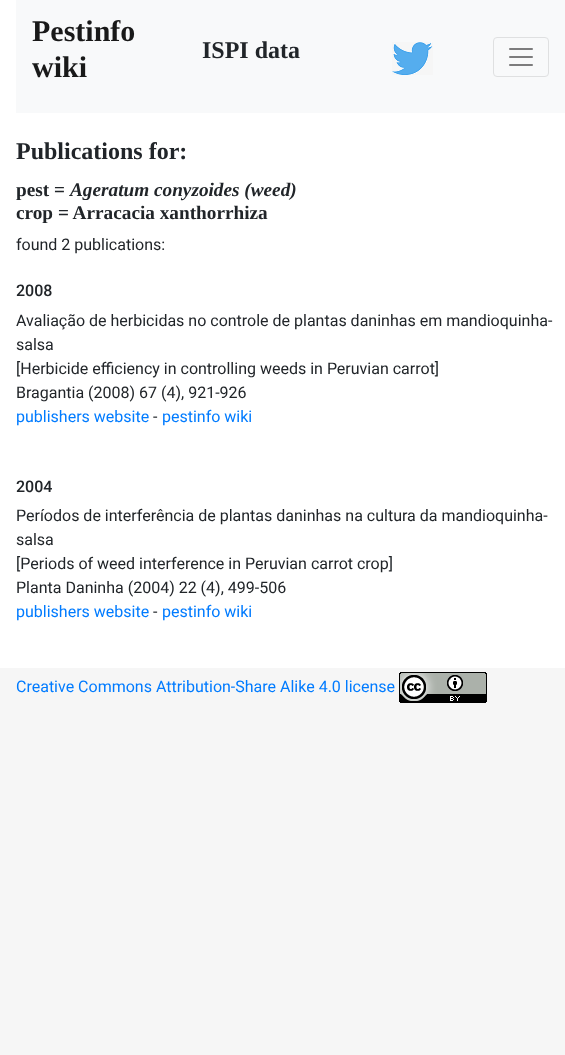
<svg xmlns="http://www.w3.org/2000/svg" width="565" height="1055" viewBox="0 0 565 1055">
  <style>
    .t1 { font: bold 30px Liberation Serif; fill: #191919; }
    .t2 { font: bold 24px Liberation Serif; fill: #212529; }
    .t3 { font: bold 19.25px Liberation Serif; fill: #212529; }
    .t4 { font: italic bold 19.25px Liberation Serif; fill: #212529; }
    .t5 { font: 16px Roboto; fill: #212529; }
    .t6 { font: 500 16px Roboto; fill: #212529; }
    .t7 { font: 16px Roboto; fill: #007bff; }
  </style>
  <rect width="100%" height="100%" fill="#f6f6f6"/>
  <rect x="0" y="0" width="565" height="668" fill="#fff"/>
  <rect x="16" y="0" width="549" height="113" fill="#f8f9fa"/>
  <text x="32" y="41" class="t1">Pestinfo</text>
  <text x="32" y="77" class="t1">wiki</text>
  <text x="202" y="58" class="t2">ISPI data</text>
  <image x="392" y="42" width="41" height="33" href="images/1.png"/>
  <rect x="493.5" y="37.5" width="55" height="39" rx="3.5" fill="none" stroke="#dfe0e1"/>
  <image x="509" y="48" width="24" height="18" href="images/2.png"/>
  <text x="16" y="159" class="t2">Publications for:</text>
  <text x="16" y="196" class="t3">pest =</text>
  <text x="70" y="196" class="t4">Ageratum conyzoides (weed)</text>
  <text x="16" y="219" class="t3">crop = Arracacia xanthorrhiza</text>
  <text x="16" y="250" class="t5">found 2 publications:</text>
  <text x="16" y="296" class="t6">2008</text>
  <text x="16" y="326" class="t5">Avaliação de herbicidas no controle de plantas daninhas em mandioquinha-</text>
  <text x="16" y="350" class="t5">salsa</text>
  <text x="16" y="374" class="t5">[Herbicide efficiency in controlling weeds in Peruvian carrot]</text>
  <text x="16" y="398" class="t5">Bragantia (2008) 67 (4), 921-926</text>
  <text x="16" y="422" class="t7">publishers website</text>
  <text x="153" y="422" class="t5">-</text>
  <text x="162" y="422" class="t7">pestinfo wiki</text>
  <text x="16" y="492" class="t6">2004</text>
  <text x="16" y="521" class="t5">Períodos de interferência de plantas daninhas na cultura da mandioquinha-</text>
  <text x="16" y="545" class="t5">salsa</text>
  <text x="16" y="569" class="t5">[Periods of weed interference in Peruvian carrot crop]</text>
  <text x="16" y="593" class="t5">Planta Daninha (2004) 22 (4), 499-506</text>
  <text x="16" y="617" class="t7">publishers website</text>
  <text x="153" y="617" class="t5">-</text>
  <text x="162" y="617" class="t7">pestinfo wiki</text>
  <text x="16" y="692" class="t7">Creative Commons Attribution-Share Alike 4.0 license</text>
  <image x="399" y="672" width="88" height="31" href="images/3.png"/>
</svg>
